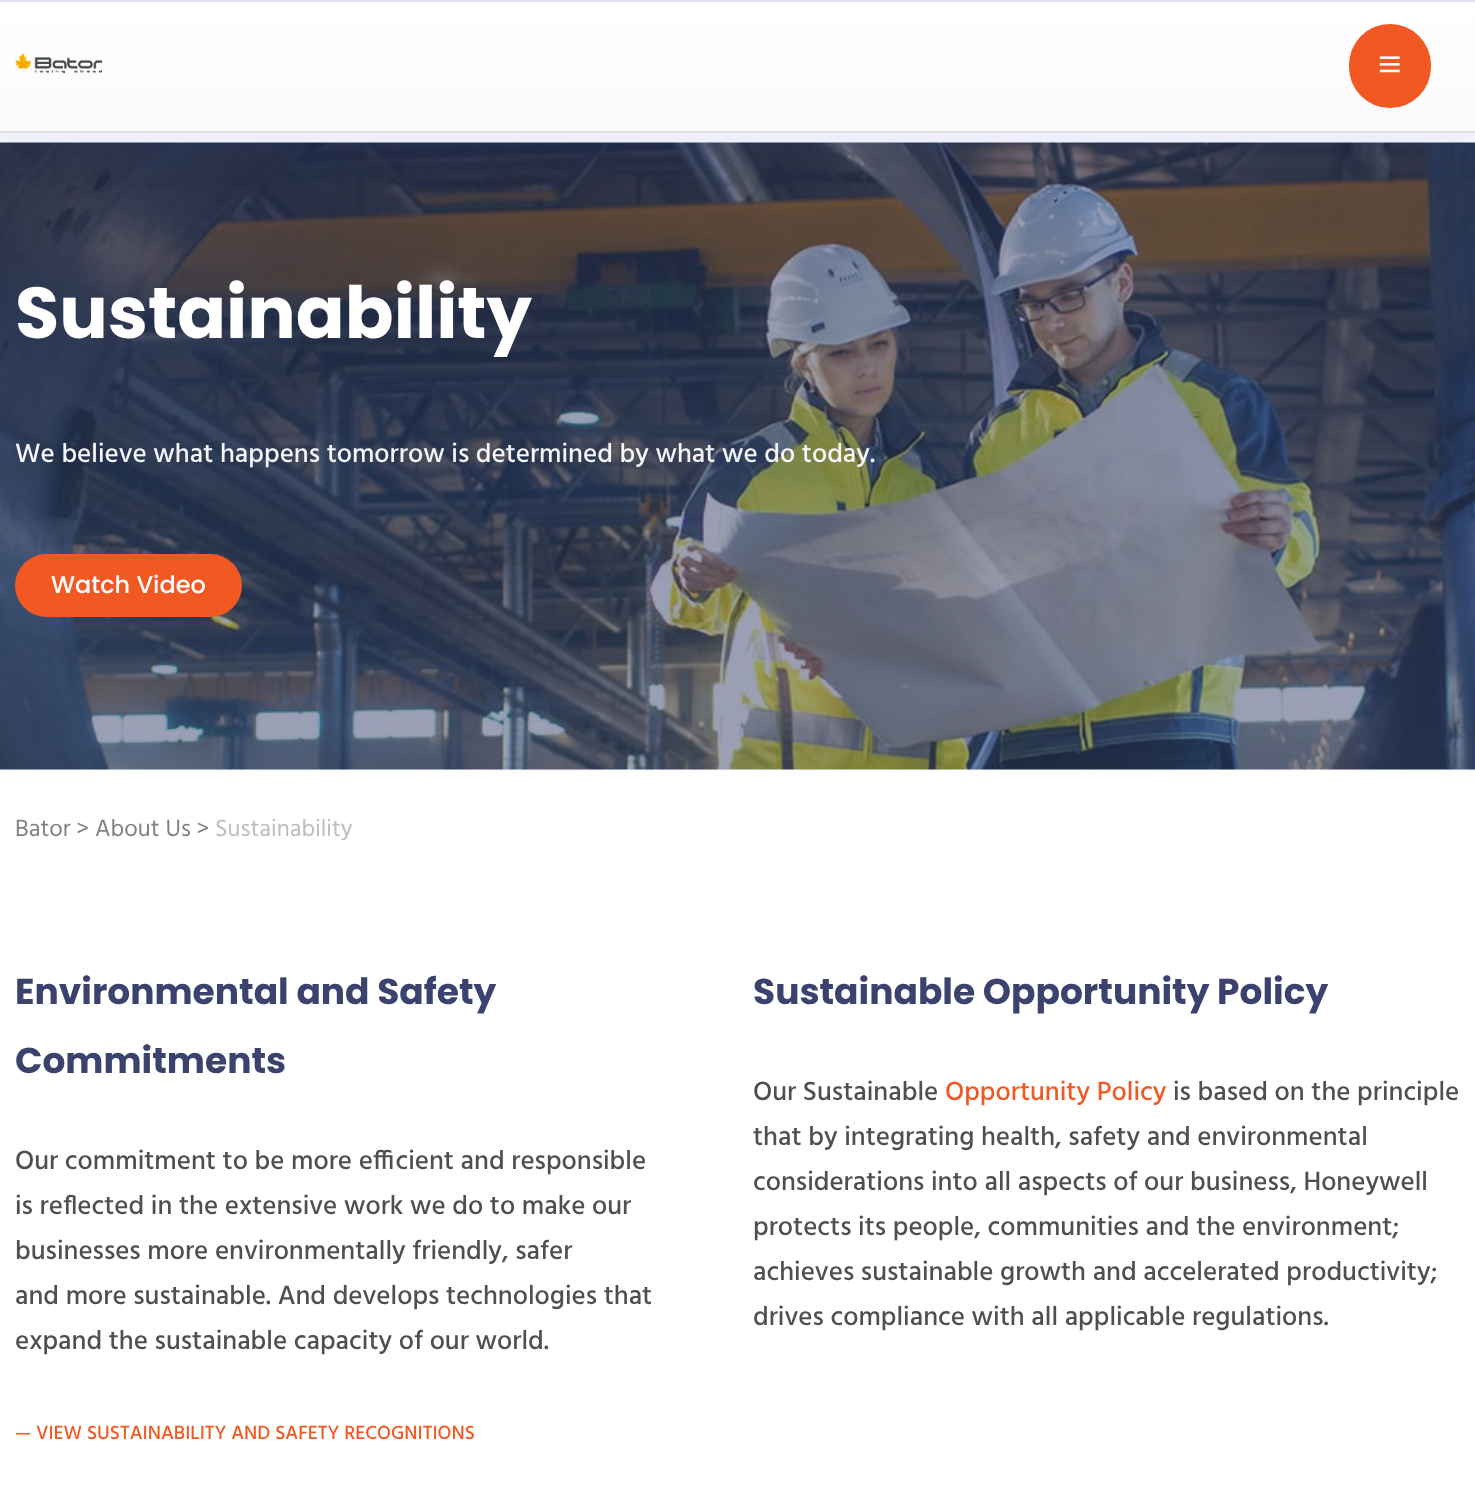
<svg xmlns="http://www.w3.org/2000/svg" width="1475" height="1501" viewBox="0 0 1475 1501">
  <style>
    .t1 { font: bold 72px Poppins; fill: #fff; }
    .t2 { font: 500 27px Hind; fill: #f5f5fa; }
    .t3 { font: 500 24px Poppins; fill: #fff; }
    .t4 { font: 24px Hind; fill: #828282; }
    .t5 { font: 24px Hind; fill: #bdbdbd; }
    .t6 { font: bold 36px Poppins; fill: #3a426d; }
    .t7 { font: 500 27px Hind; fill: #4f4f4f; }
    .t8 { font: 500 19.5px Hind; fill: #f15822; }
    .t9 { font: 500 27px Hind; fill: #f15822; }
  </style>
  <defs>
    <linearGradient id="g1" gradientUnits="userSpaceOnUse" x1="738" y1="1.5" x2="738" y2="131"><stop offset="0" stop-color="#fff"/><stop offset="1" stop-color="#fafafa"/></linearGradient>
  </defs>
  <rect width="100%" height="100%" fill="#f5f5fa"/>
  <image x="0" y="142" width="1475" height="628" href="images/3.png"/>
  <rect x="0" y="0" width="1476" height="132" fill="#566dfb1a" filter="blur(28px)"/>
  <rect x="0" y="2" width="1475" height="129" fill="url(#g1)"/>
  <rect x="0" y="0" width="1475" height="2" fill="#dfe2ed"/>
  <rect x="0" y="131" width="1475" height="2" fill="#dfe2ed"/>
  <image x="15" y="52" width="87" height="23" href="images/1.png"/>
  <rect x="1349" y="24" width="82" height="84" rx="41" fill="#f15822"/>
  <image x="1379" y="56" width="21" height="17" href="images/2.png"/>
  <text x="15" y="338" class="t1">Sustainability</text>
  <text x="15" y="462" class="t2">We believe what happens tomorrow is determined by what we do today.</text>
  <rect x="15" y="554" width="227" height="63" rx="31.5" fill="#f15822"/>
  <text x="51" y="593" class="t3">Watch Video</text>
  <rect x="0" y="770" width="1475" height="731" fill="#fff"/>
  <text x="15" y="836" class="t4">Bator &gt; About Us &gt;</text>
  <text x="215" y="836" class="t5">Sustainability</text>
  <text x="15" y="1004" class="t6">Environmental and Safety</text>
  <text x="15" y="1073" class="t6">Commitments</text>
  <text x="15" y="1169" class="t7">Our commitment to be more efficient and responsible</text>
  <text x="15" y="1214" class="t7">is reflected in the extensive work we do to make our</text>
  <text x="15" y="1259" class="t7">businesses more environmentally friendly, safer</text>
  <text x="15" y="1304" class="t7">and more sustainable. And develops technologies that</text>
  <text x="15" y="1349" class="t7">expand the sustainable capacity of our world.</text>
  <text x="15" y="1439" class="t8">— VIEW SUSTAINABILITY AND SAFETY RECOGNITIONS</text>
  <text x="753" y="1004" class="t6">Sustainable Opportunity Policy</text>
  <text x="753" y="1100" class="t7">Our Sustainable</text>
  <text x="945" y="1100" class="t9">Opportunity Policy</text>
  <text x="1173" y="1100" class="t7">is based on the principle</text>
  <text x="753" y="1145" class="t7">that by integrating health, safety and environmental</text>
  <text x="753" y="1190" class="t7">considerations into all aspects of our business, Honeywell</text>
  <text x="753" y="1235" class="t7">protects its people, communities and the environment;</text>
  <text x="753" y="1280" class="t7">achieves sustainable growth and accelerated productivity;</text>
  <text x="753" y="1325" class="t7">drives compliance with all applicable regulations.</text>
</svg>
